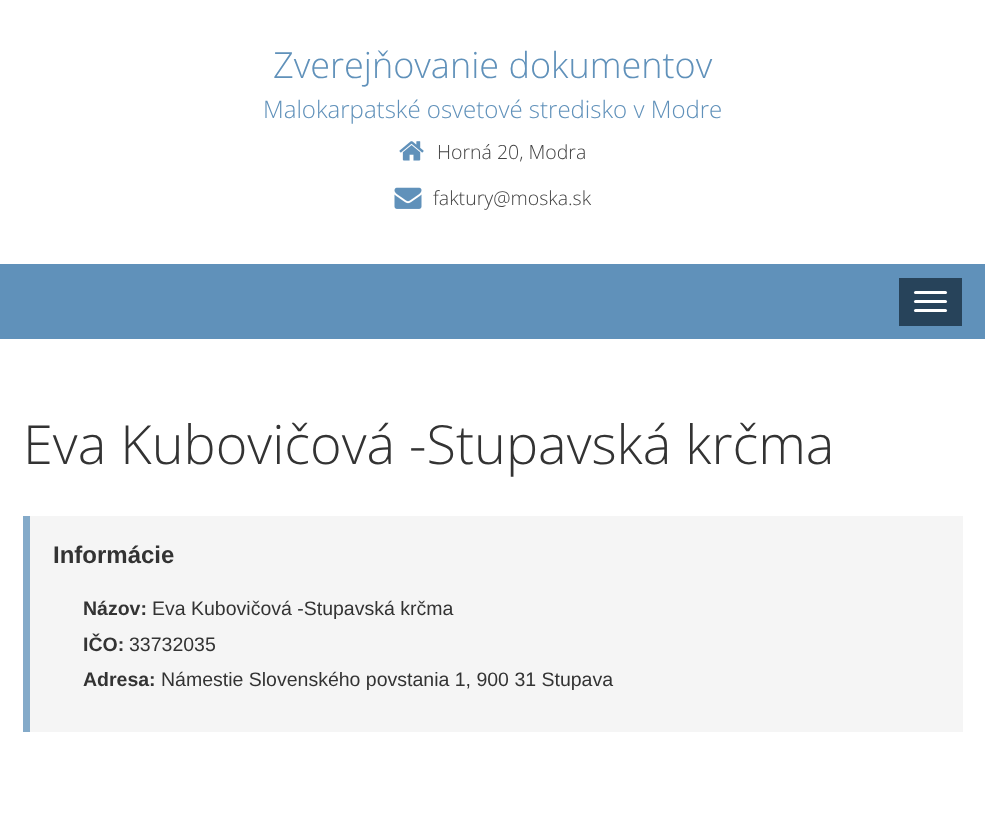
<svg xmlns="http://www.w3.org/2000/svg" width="985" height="829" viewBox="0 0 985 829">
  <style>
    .t1 { font: 300 36px Open Sans; fill: #6091ba; }
    .t2 { font: 300 24px Open Sans; fill: #6091ba; }
    .t3 { font: 300 19.5px Open Sans; fill: #444; }
    .t4 { font: 300 54px Open Sans; fill: #333; }
    .t5 { font: bold 24px Liberation Sans; fill: #333; }
    .t6 { font: bold 19.5px Liberation Sans; fill: #333; }
    .t7 { font: 19.5px Liberation Sans; fill: #333; }
  </style>
  <rect width="100%" height="100%" fill="#fff"/>
  <text x="273" y="78" class="t1">Zverejňovanie dokumentov</text>
  <text x="263" y="118" class="t2">Malokarpatské osvetové stredisko v Modre</text>
  <image x="399" y="141" width="25" height="20" href="images/1.png"/>
  <text x="437" y="159" class="t3">Horná 20, Modra</text>
  <image x="394" y="187" width="28" height="22" href="images/2.png"/>
  <text x="433" y="205" class="t3">faktury@moska.sk</text>
  <rect x="0" y="264" width="985" height="75" fill="#6091ba"/>
  <rect x="899" y="278" width="63" height="48" fill="#27435a"/>
  <rect x="914" y="291" width="33" height="3" rx="1.5" fill="#fff"/>
  <rect x="914" y="300" width="33" height="3" rx="1.5" fill="#fff"/>
  <rect x="914" y="309" width="33" height="3" rx="1.5" fill="#fff"/>
  <text x="23" y="464" class="t4">Eva Kubovičová -Stupavská krčma</text>
  <rect x="30" y="516" width="933" height="216" fill="#f5f5f5"/>
  <rect x="23" y="516" width="7" height="216" fill="#84aac9"/>
  <text x="53" y="563" class="t5">Informácie</text>
  <text x="83" y="615" class="t6">Názov:</text>
  <text x="152" y="615" class="t7">Eva Kubovičová -Stupavská krčma</text>
  <text x="83" y="651" class="t6">IČO:</text>
  <text x="129" y="651" class="t7">33732035</text>
  <text x="83" y="686" class="t6">Adresa:</text>
  <text x="161" y="686" class="t7">Námestie Slovenského povstania 1, 900 31 Stupava</text>
</svg>
